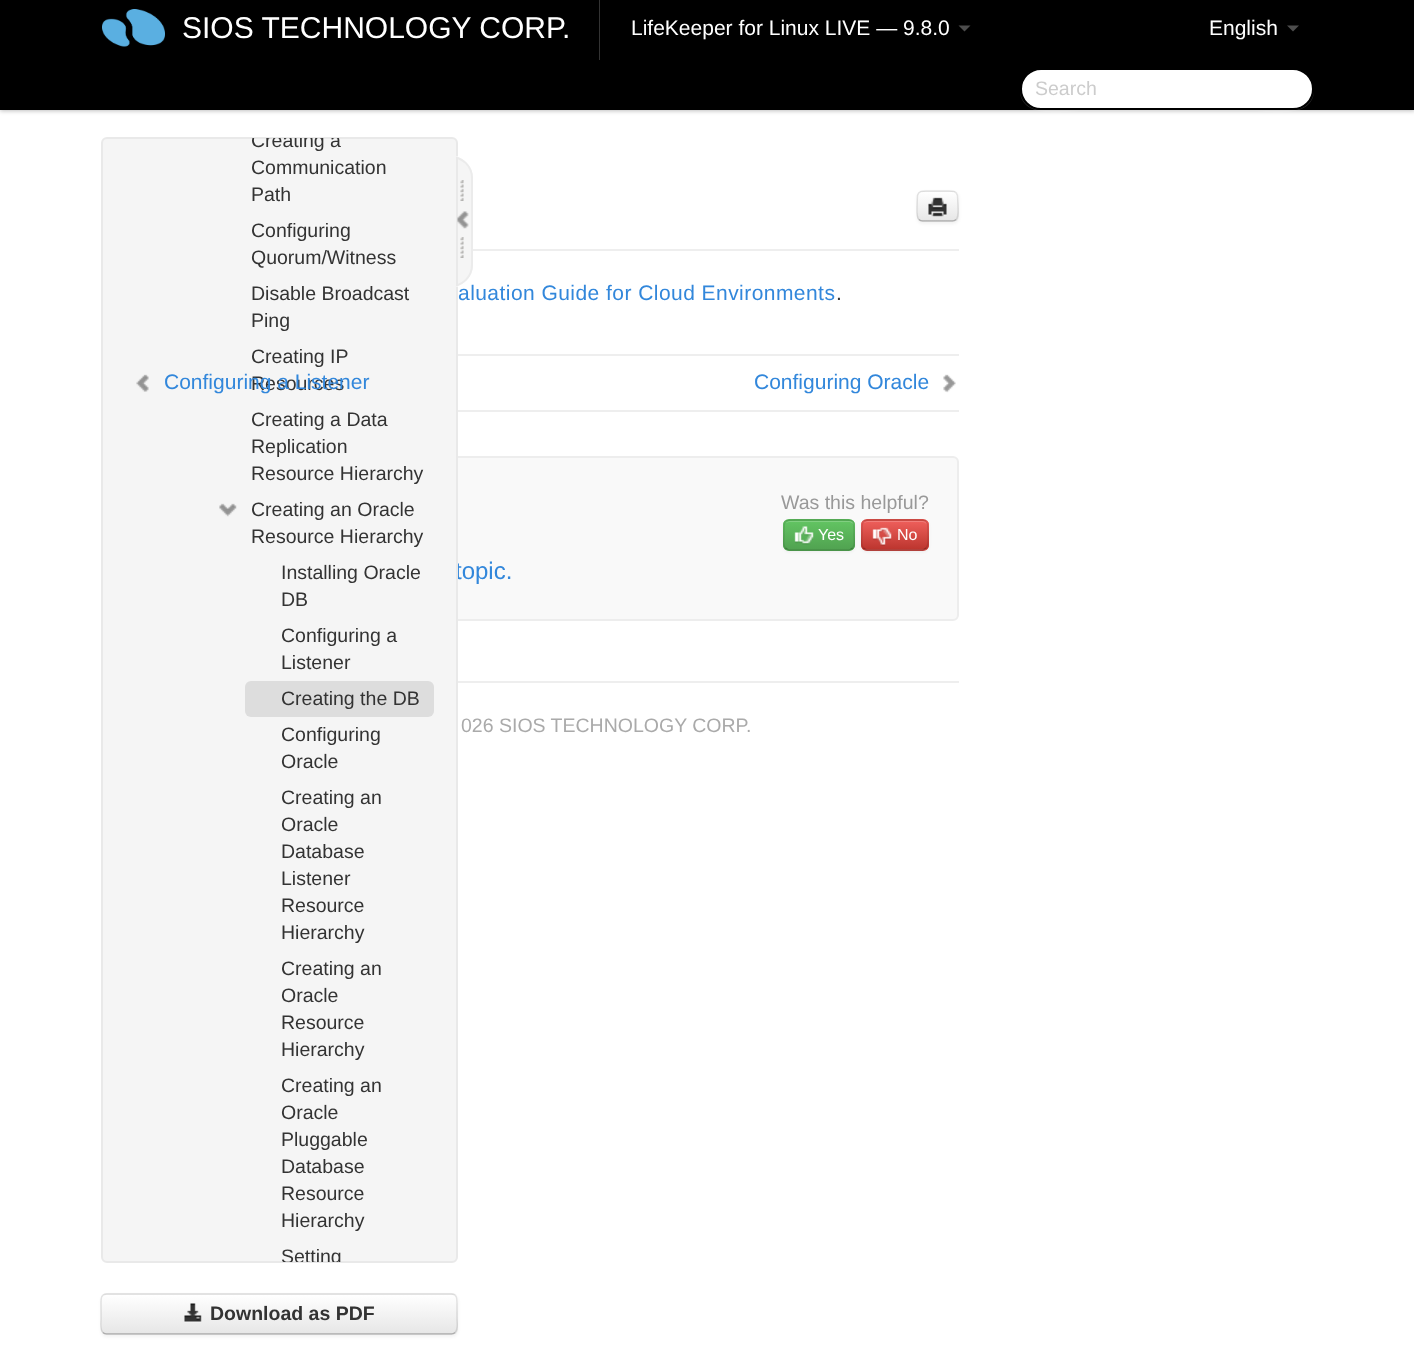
<svg xmlns="http://www.w3.org/2000/svg" width="1414" height="1365" viewBox="0 0 1414 1365">
  <style>
    .t1 { font: 30px Liberation Sans; fill: #fff; }
    .t2 { font: 21px Liberation Sans; fill: #fff; }
    .t3 { font: 19.5px Liberation Sans; fill: #ccc; }
    .t4 { font: 24px Liberation Sans; fill: #3287db; }
    .t5 { font: 19.5px Liberation Sans; fill: #333; }
    .t6 { font: 21px Liberation Sans; letter-spacing: 0.45px; fill: #3287db; }
    .t7 { font: bold 19.5px Liberation Sans; fill: #333; }
    .t8 { font: 21px Liberation Sans; letter-spacing: 0.45px; fill: #333; }
    .t9 { font: 21px Liberation Sans; fill: #3287db; }
    .t10 { font: 19.5px Liberation Sans; fill: #999; }
    .t11 { font: 16px Liberation Sans; fill: #fff; }
    .t12 { font: 19.5px Liberation Sans; fill: #aaa; }
  </style>
  <defs>
    <clipPath id="clip1"><rect x="102" y="138" width="354" height="1124" rx="5"/></clipPath>
    <clipPath id="clip2"><rect x="458" y="141" width="30" height="165"/></clipPath>
    <clipPath id="clip3"><rect x="101" y="1293" width="357" height="42" rx="6"/></clipPath>
    <linearGradient id="g1" gradientUnits="userSpaceOnUse" x1="279" y1="1295" x2="279" y2="1334"><stop offset="0" stop-color="#fff"/><stop offset="1" stop-color="#e6e6e6"/></linearGradient>
    <clipPath id="clip4"><rect x="917" y="191" width="42" height="31" rx="6"/></clipPath>
    <linearGradient id="g2" gradientUnits="userSpaceOnUse" x1="938" y1="192" x2="938" y2="221"><stop offset="0" stop-color="#fff"/><stop offset="1" stop-color="#e6e6e6"/></linearGradient>
    <clipPath id="clip5"><rect x="783" y="519" width="72" height="32" rx="6"/></clipPath>
    <linearGradient id="g3" gradientUnits="userSpaceOnUse" x1="819" y1="521" x2="819" y2="549"><stop offset="0" stop-color="#62c462"/><stop offset="1" stop-color="#51a351"/></linearGradient>
    <clipPath id="clip6"><rect x="861" y="519" width="68" height="32" rx="6"/></clipPath>
    <linearGradient id="g4" gradientUnits="userSpaceOnUse" x1="895" y1="521" x2="895" y2="549"><stop offset="0" stop-color="#ee5f5b"/><stop offset="1" stop-color="#bd362f"/></linearGradient>
  </defs>
  <rect width="100%" height="100%" fill="#fff"/>
  <rect x="0" y="2" width="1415" height="109" fill="#00000040" filter="blur(2px)"/>
  <rect x="0" y="0" width="1414" height="110" fill="#000"/>
  <image x="102" y="9" width="63" height="38" href="images/1.png"/>
  <text x="182" y="38" class="t1">SIOS TECHNOLOGY CORP.</text>
  <rect x="599" y="0" width="1" height="60" fill="#333"/>
  <text x="631" y="35" class="t2">LifeKeeper for Linux LIVE — 9.8.0</text>
  <path d="M958.5 25.5H970.5L964.5 31.5Z" fill="#4d4d4d"/>
  <path d="M1020 89C1019 121 1068 111 1083 111H1251C1266 111 1315 121 1314 89C1314 101 1304 110 1293 110H1041C1030 110 1020 101 1020 89Z" fill="#ffffff26"/>
  <rect x="1021" y="69" width="292" height="40" rx="20" fill="#fff" stroke="#000" stroke-width="2"/>
  <text x="1035" y="95" class="t3">Search</text>
  <text x="1209" y="35" class="t2">English</text>
  <path d="M1287 25.5H1299L1293 31.5Z" fill="#4d4d4d"/>
  <rect x="135" y="457" width="823" height="163" rx="5" fill="#f9f9f9" stroke="#ededed" stroke-width="2"/>
  <text x="455" y="579" class="t4">topic.</text>
  <rect x="102" y="138" width="355" height="1124" rx="5" fill="#f5f5f5" stroke="#e9e9e9" stroke-width="2"/>
  <g clip-path="url(#clip1)">
    <text x="251" y="147" class="t5">Creating a</text>
  </g>
  <text x="251" y="174" class="t5">Communication</text>
  <text x="251" y="201" class="t5">Path</text>
  <text x="251" y="237" class="t5">Configuring</text>
  <text x="251" y="264" class="t5">Quorum/Witness</text>
  <text x="251" y="300" class="t5">Disable Broadcast</text>
  <text x="251" y="327" class="t5">Ping</text>
  <text x="251" y="363" class="t5">Creating IP</text>
  <text x="251" y="390" class="t5">Resources</text>
  <text x="251" y="426" class="t5">Creating a Data</text>
  <text x="251" y="453" class="t5">Replication</text>
  <text x="251" y="480" class="t5">Resource Hierarchy</text>
  <image x="219" y="503" width="18" height="14" href="images/2.png"/>
  <text x="251" y="516" class="t5">Creating an Oracle</text>
  <text x="251" y="543" class="t5">Resource Hierarchy</text>
  <text x="281" y="579" class="t5">Installing Oracle</text>
  <text x="281" y="606" class="t5">DB</text>
  <text x="281" y="642" class="t5">Configuring a</text>
  <text x="281" y="669" class="t5">Listener</text>
  <rect x="245" y="681" width="189" height="36" rx="6" fill="#ddd"/>
  <text x="281" y="705" class="t5">Creating the DB</text>
  <text x="281" y="741" class="t5">Configuring</text>
  <text x="281" y="768" class="t5">Oracle</text>
  <text x="281" y="804" class="t5">Creating an</text>
  <text x="281" y="831" class="t5">Oracle</text>
  <text x="281" y="858" class="t5">Database</text>
  <text x="281" y="885" class="t5">Listener</text>
  <text x="281" y="912" class="t5">Resource</text>
  <text x="281" y="939" class="t5">Hierarchy</text>
  <text x="281" y="975" class="t5">Creating an</text>
  <text x="281" y="1002" class="t5">Oracle</text>
  <text x="281" y="1029" class="t5">Resource</text>
  <text x="281" y="1056" class="t5">Hierarchy</text>
  <text x="281" y="1092" class="t5">Creating an</text>
  <text x="281" y="1119" class="t5">Oracle</text>
  <text x="281" y="1146" class="t5">Pluggable</text>
  <text x="281" y="1173" class="t5">Database</text>
  <text x="281" y="1200" class="t5">Resource</text>
  <text x="281" y="1227" class="t5">Hierarchy</text>
  <g clip-path="url(#clip1)">
    <text x="281" y="1263" class="t5">Setting</text>
  </g>
  <text x="458" y="300" class="t6">aluation Guide for Cloud Environments</text>
  <path d="M458 156H451C463 156 473 166 473 178V265C473 277 463 287 451 287H458Z" fill="#f5f5f5"/>
  <g clip-path="url(#clip2)">
    <rect x="430" y="157" width="42" height="129" rx="21" fill="none" stroke="#ebebeb" stroke-width="2"/>
  </g>
  <image x="460" y="180" width="4" height="21" href="images/3.png"/>
  <image x="457" y="211" width="12" height="18" href="images/4.png"/>
  <image x="460" y="237" width="4" height="21" href="images/3.png"/>
  <rect x="101" y="1295" width="357" height="42" rx="6" fill="#0000000d" filter="blur(1.5px)"/>
  <rect x="101" y="1293" width="357" height="42" rx="6" fill="#f5f5f5"/>
  <g clip-path="url(#clip3)">
    <rect x="101" y="1295" width="357" height="39" fill="url(#g1)"/>
  </g>
  <path d="M455 1332.5C454 1333.5 453 1334 451.5 1334H106.5C105 1334 104 1333.5 103 1332.5" fill="none" stroke="#00000040" stroke-width="1.5"/>
  <path d="M103 1332.5C99.5 1329.5 101 1322.5 101 1319V1304C101 1300 100.5 1294 106.5 1294H451.5C457.5 1294 457 1300 457 1304V1319C457 1322.5 458.5 1329.5 455 1332.5" fill="none" stroke="#0000001a" stroke-width="1.5"/>
  <image x="184" y="1303" width="18" height="20" href="images/5.png"/>
  <text x="210" y="1320" class="t7">Download as PDF</text>
  <rect x="473" y="249" width="486" height="2" fill="#eee"/>
  <rect x="917" y="192" width="42" height="32" rx="6" fill="#0000000d" filter="blur(1.5px)"/>
  <rect x="917" y="191" width="42" height="31" rx="6" fill="#f5f5f5"/>
  <g clip-path="url(#clip4)">
    <rect x="917" y="192" width="42" height="29" fill="url(#g2)"/>
  </g>
  <path d="M956 219.5C955 220.5 954 221 952.5 221H922.5C921 221 920 220.5 919 219.5" fill="none" stroke="#00000040" stroke-width="1.5"/>
  <path d="M919 219.5C916 217 917 210 917 206L917.5 195.5C918.5 190.5 923.5 191 927.5 191H947.5C951.5 191 956.5 190.5 957.5 195.5L958 206C958 210 959 217 956 219.5" fill="none" stroke="#0000001a" stroke-width="1.5"/>
  <image x="928" y="197" width="19" height="20" href="images/6.png"/>
  <text x="836" y="300" class="t8">.</text>
  <rect x="458" y="354" width="501" height="2" fill="#eee"/>
  <rect x="458" y="410" width="501" height="2" fill="#eee"/>
  <image x="136" y="374" width="13" height="18" href="images/7.png"/>
  <text x="164" y="389" class="t9">Configuring a Listener</text>
  <text x="754" y="389" class="t9">Configuring Oracle</text>
  <image x="943" y="374" width="13" height="19" href="images/8.png"/>
  <text x="781" y="509" class="t10">Was this helpful?</text>
  <rect x="783" y="521" width="72" height="31" rx="6" fill="#0000000d" filter="blur(1.5px)"/>
  <rect x="783" y="519" width="72" height="32" rx="6" fill="#5bb75b"/>
  <g clip-path="url(#clip5)">
    <rect x="783" y="521" width="72" height="28" fill="url(#g3)"/>
  </g>
  <path d="M789 522H849C851 522 854 524 854 526C854 523 852 521 849 521H790C788 521 787 522 786 523Z" fill="#81cf81"/>
  <path d="M852.5 548C851.5 549 850.5 550 849 550H789C787.5 550 786.5 549 785.5 548" fill="none" stroke="#00000040" stroke-width="1.5"/>
  <path d="M785.5 548C782.5 545.5 784 538.5 784 535C784 519 782.5 520 799 520H839C855.5 520 854 519 854 535C854 538.5 855.5 545.5 852.5 548" fill="none" stroke="#0000001a" stroke-width="1.5"/>
  <image x="794" y="526" width="20" height="19" href="images/9.png"/>
  <text x="818" y="540" class="t11">Yes</text>
  <rect x="861" y="521" width="68" height="31" rx="6" fill="#0000000d" filter="blur(1.5px)"/>
  <rect x="861" y="519" width="68" height="32" rx="6" fill="#da4f49"/>
  <g clip-path="url(#clip6)">
    <rect x="861" y="521" width="68" height="28" fill="url(#g4)"/>
  </g>
  <path d="M867 522H922C925 522 927 524 927 526C927 523 925 521 922 521H868C866 521 865 522 864 523Z" fill="#f17e7b"/>
  <path d="M926 548C925 549 924 550 922.5 550H867C865.5 550 864.5 549 863.5 548" fill="none" stroke="#00000040" stroke-width="1.5"/>
  <path d="M863.5 548C860.5 545.5 862 538.5 862 535C862 519.5 860.5 520 876 520H913C929 520 928 519.5 928 535C928 538.5 929 545.5 926 548" fill="none" stroke="#0000001a" stroke-width="1.5"/>
  <image x="872" y="527" width="20" height="19" href="images/10.png"/>
  <text x="897" y="540" class="t11">No</text>
  <rect x="458" y="681" width="501" height="2" fill="#eee"/>
  <text x="461" y="732" class="t12">026 SIOS TECHNOLOGY CORP.</text>
</svg>
